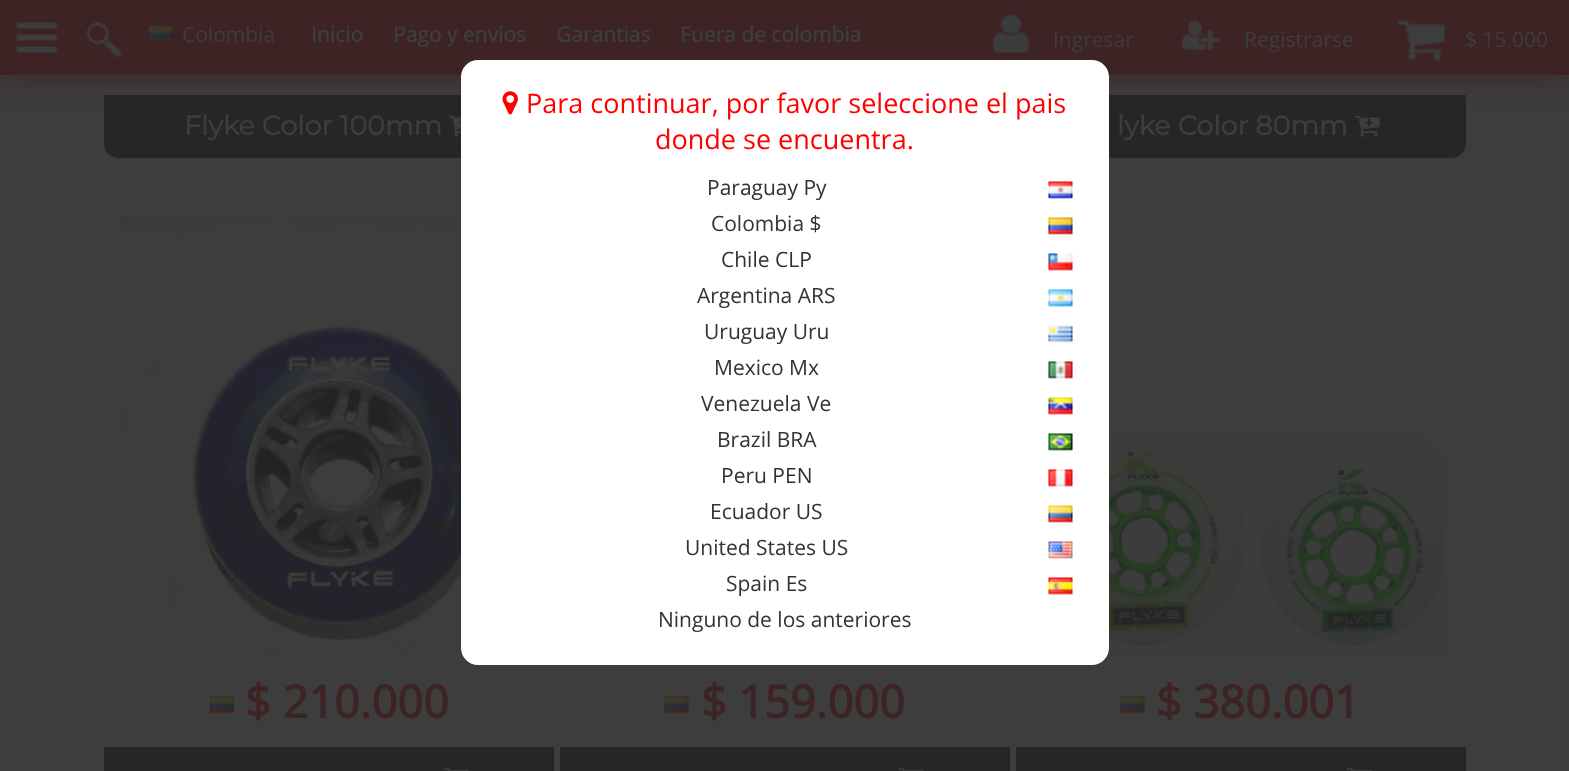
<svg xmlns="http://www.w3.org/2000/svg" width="1569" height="771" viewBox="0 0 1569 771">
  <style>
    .t1 { font: 21px Open Sans; fill: #3d3d3d; }
    .t2 { font: bold 21px Open Sans; fill: #3d3d3d; }
    .t3 { font: 27px Open Sans; fill: #f00; }
    .t4 { font: 21px Open Sans; fill: #333; }
    .t5 { font: bold 27px Montserrat; fill: #3d3d3d; }
    .t6 { font: bold 45px Open Sans; fill: #3d2323; }
  </style>
  <rect width="100%" height="100%" fill="#3d3d3d"/>
  <path d="M104 95H554V143C554 151.5 547.5 158 539 158H119C110.5 158 104 151.5 104 143Z" fill="#262626"/>
  <image x="448" y="115" width="13" height="22" href="images/20.png"/>
  <path d="M1016 95H1466V143C1466 151.5 1459.5 158 1451 158H1031C1022.5 158 1016 151.5 1016 143Z" fill="#262626"/>
  <image x="1354" y="115" width="26" height="22" href="images/21.png"/>
  <rect x="0" y="0" width="1569" height="75" fill="#3d2323" filter="blur(15px)"/>
  <rect x="0" y="0" width="1569" height="75" fill="#3d2323"/>
  <image x="15" y="22" width="43" height="31" href="images/1.png"/>
  <image x="86" y="22" width="37" height="36" href="images/2.png"/>
  <image x="148" y="25" width="25" height="17" href="images/3.png"/>
  <text x="182" y="42" class="t1">Colombia</text>
  <text x="311" y="42" class="t2">Inicio</text>
  <text x="393" y="42" class="t2">Pago y envios</text>
  <text x="556" y="42" class="t2">Garantias</text>
  <text x="680" y="42" class="t2">Fuera de colombia</text>
  <image x="992" y="14" width="38" height="40" href="images/4.png"/>
  <text x="1053" y="47" class="t1">Ingresar</text>
  <image x="1181" y="20" width="39" height="31" href="images/5.png"/>
  <text x="1244" y="47" class="t1">Registrarse</text>
  <image x="1397" y="20" width="48" height="41" href="images/6.png"/>
  <text x="1465" y="47" class="t1">$ 15.000</text>
  <image x="120" y="214" width="343" height="441" href="images/22.png"/>
  <image x="1107" y="429" width="342" height="226" href="images/27.png"/>
  <rect x="461" y="60" width="648" height="605" rx="17" fill="#fff"/>
  <image x="502" y="91" width="16" height="24" href="images/7.png"/>
  <text x="526" y="113" class="t3">Para continuar, por favor seleccione el pais</text>
  <text x="655" y="149" class="t3">donde se encuentra.</text>
  <text x="707" y="195" class="t4">Paraguay Py</text>
  <image x="1048" y="181" width="25" height="18" href="images/8.png"/>
  <text x="711" y="231" class="t4">Colombia $</text>
  <image x="1048" y="217" width="25" height="18" href="images/9.png"/>
  <text x="721" y="267" class="t4">Chile CLP</text>
  <image x="1048" y="253" width="25" height="18" href="images/10.png"/>
  <text x="697" y="303" class="t4">Argentina ARS</text>
  <image x="1048" y="289" width="25" height="18" href="images/11.png"/>
  <text x="704" y="339" class="t4">Uruguay Uru</text>
  <image x="1048" y="325" width="25" height="18" href="images/12.png"/>
  <text x="714" y="375" class="t4">Mexico Mx</text>
  <image x="1048" y="361" width="25" height="18" href="images/13.png"/>
  <text x="701" y="411" class="t4">Venezuela Ve</text>
  <image x="1048" y="397" width="25" height="18" href="images/14.png"/>
  <text x="717" y="447" class="t4">Brazil BRA</text>
  <image x="1048" y="433" width="25" height="18" href="images/15.png"/>
  <text x="721" y="483" class="t4">Peru PEN</text>
  <image x="1048" y="469" width="25" height="18" href="images/16.png"/>
  <text x="710" y="519" class="t4">Ecuador US</text>
  <image x="1048" y="505" width="25" height="18" href="images/17.png"/>
  <text x="685" y="555" class="t4">United States US</text>
  <image x="1048" y="541" width="25" height="18" href="images/18.png"/>
  <text x="726" y="591" class="t4">Spain Es</text>
  <image x="1048" y="577" width="25" height="18" href="images/19.png"/>
  <text x="658" y="627" class="t4">Ninguno de los anteriores</text>
  <text x="184" y="135" class="t5">Flyke Color 100mm</text>
  <text x="1117" y="135" class="t5">lyke Color 80mm</text>
  <image x="210" y="696" width="24" height="17" href="images/23.png"/>
  <text x="245" y="718" class="t6">$ 210.000</text>
  <rect x="104" y="747" width="450" height="24" fill="#262626"/>
  <image x="444" y="768" width="25" height="3" href="images/24.png"/>
  <image x="664" y="696" width="25" height="17" href="images/25.png"/>
  <text x="701" y="718" class="t6">$ 159.000</text>
  <rect x="560" y="747" width="450" height="24" fill="#262626"/>
  <image x="898" y="768" width="26" height="3" href="images/26.png"/>
  <image x="1120" y="696" width="25" height="17" href="images/25.png"/>
  <text x="1156" y="718" class="t6">$ 380.001</text>
  <rect x="1016" y="747" width="450" height="24" fill="#262626"/>
  <image x="1347" y="768" width="25" height="3" href="images/24.png"/>
</svg>
